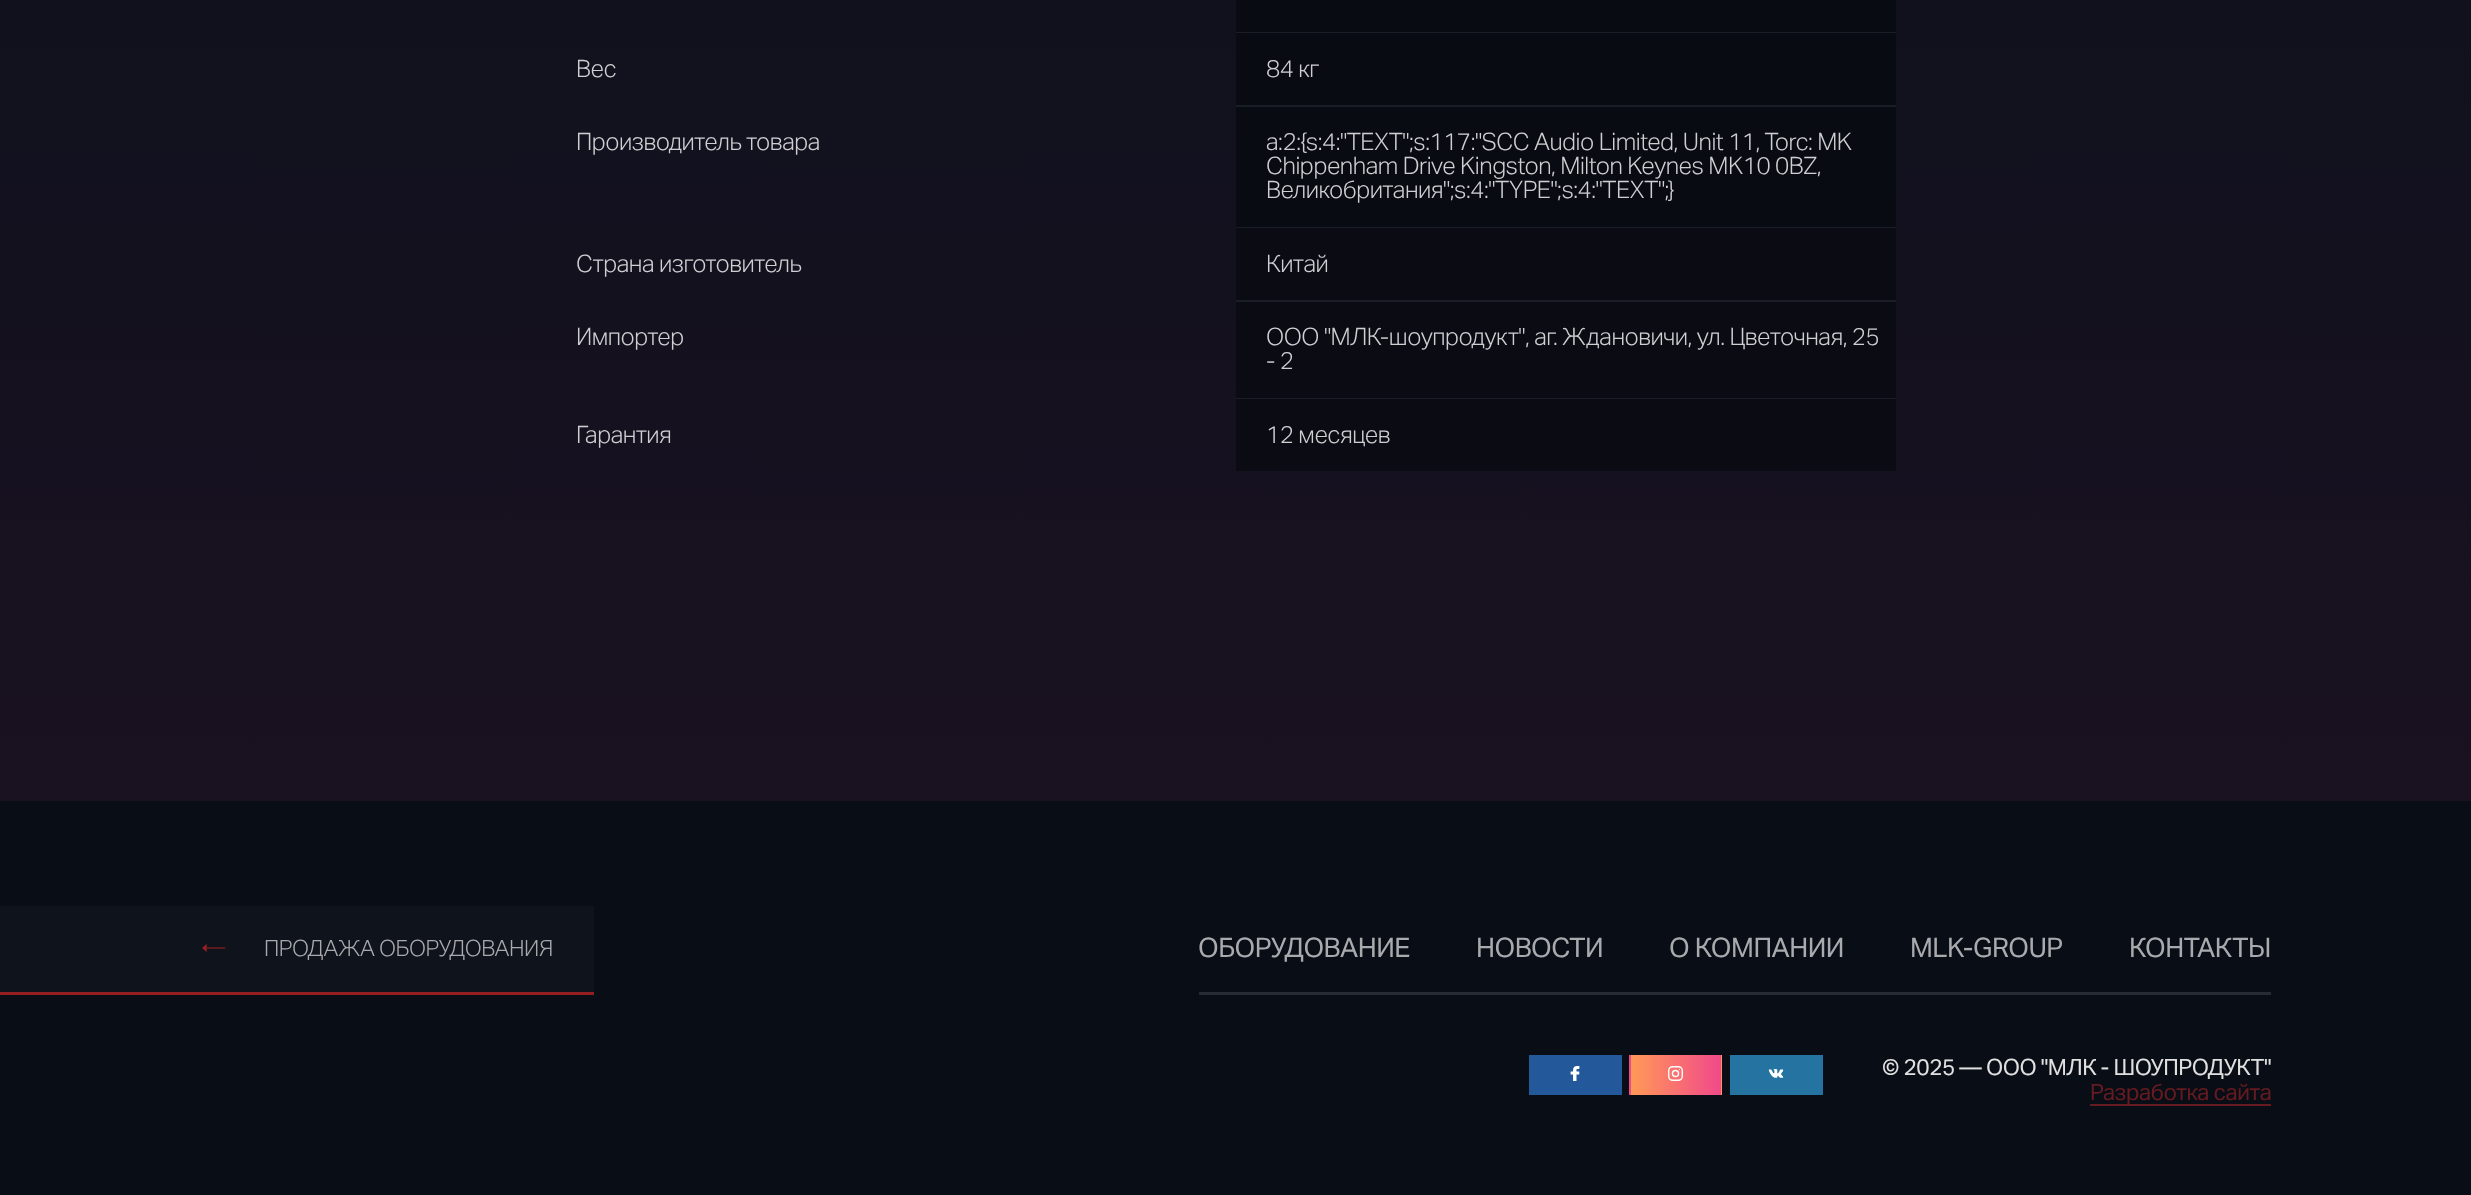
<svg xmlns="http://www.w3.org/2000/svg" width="2471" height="1195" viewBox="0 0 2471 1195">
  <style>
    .t1 { font: 300 24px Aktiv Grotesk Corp; letter-spacing: -0.48px; fill: #cfcfd2; }
    .t2 { font: 300 22.5px Aktiv Grotesk Corp; letter-spacing: -0.48px; fill: #a9aaad; }
    .t3 { font: 27px Aktiv Grotesk Corp; letter-spacing: -0.48px; fill: #a9aaad; }
    .t4 { font: 22.5px Aktiv Grotesk Corp; letter-spacing: -0.48px; fill: #e0e0e0; }
    .t5 { font: 22.5px Aktiv Grotesk Corp; letter-spacing: -0.48px; fill: #651b20; }
  </style>
  <defs>
    <linearGradient id="g1" gradientUnits="userSpaceOnUse" x1="1236" y1="-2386" x2="1236" y2="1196"><stop offset="0" stop-color="#0e111d"/><stop offset="0.6" stop-color="#0e111d"/><stop offset="0.85" stop-color="#181120"/><stop offset="1" stop-color="#201122"/></linearGradient>
    <linearGradient id="g2" gradientUnits="userSpaceOnUse" x1="1631" y1="1075" x2="1541" y2="1075"><stop offset="0" stop-color="#f1498a"/><stop offset="0.97" stop-color="#ff9758"/></linearGradient>
    <linearGradient id="g3" gradientUnits="userSpaceOnUse" x1="1721" y1="1075" x2="1631" y2="1075"><stop offset="0" stop-color="#f1498a"/><stop offset="0.97" stop-color="#ff9758"/></linearGradient>
    <linearGradient id="g4" gradientUnits="userSpaceOnUse" x1="1811" y1="1075" x2="1721" y2="1075"><stop offset="0" stop-color="#f1498a"/><stop offset="0.97" stop-color="#ff9758"/></linearGradient>
  </defs>
  <rect width="100%" height="100%" fill="#fff"/>
  <rect x="0" y="0" width="2471" height="801" fill="url(#g1)"/>
  <rect x="1236" y="0" width="660" height="32" fill="#090b13"/>
  <rect x="1236" y="32" width="660" height="1" fill="#191e27"/>
  <text x="576" y="77" class="t1">Вес</text>
  <rect x="1236" y="33" width="660" height="72" fill="#090b13"/>
  <rect x="1236" y="105" width="660" height="2" fill="#191e27"/>
  <text x="1266" y="77" class="t1">84 кг</text>
  <text x="576" y="150" class="t1">Производитель товара</text>
  <rect x="1236" y="107" width="660" height="120" fill="#090b13"/>
  <rect x="1236" y="227" width="660" height="1" fill="#191e27"/>
  <text x="1266" y="150" class="t1">a:2:{s:4:"TEXT";s:117:"SCC Audio Limited, Unit 11, Torc: MK</text>
  <text x="1266" y="174" class="t1">Chippenham Drive Kingston, Milton Keynes MK10 0BZ,</text>
  <text x="1266" y="198" class="t1">Великобритания";s:4:"TYPE";s:4:"TEXT";}</text>
  <text x="576" y="272" class="t1">Страна изготовитель</text>
  <rect x="1236" y="228" width="660" height="72" fill="#0a0b13"/>
  <rect x="1236" y="300" width="660" height="2" fill="#1a1e27"/>
  <text x="1266" y="272" class="t1">Китай</text>
  <text x="576" y="345" class="t1">Импортер</text>
  <rect x="1236" y="302" width="660" height="96" fill="#0a0b13"/>
  <rect x="1236" y="398" width="660" height="1" fill="#1a1e27"/>
  <text x="1266" y="345" class="t1">ООО "МЛК-шоупродукт", аг. Ждановичи, ул. Цветочная, 25</text>
  <text x="1266" y="369" class="t1">- 2</text>
  <text x="576" y="443" class="t1">Гарантия</text>
  <rect x="1236" y="399" width="660" height="72" fill="#0a0b13"/>
  <text x="1266" y="443" class="t1">12 месяцев</text>
  <rect x="0" y="801" width="2471" height="394" fill="#080d16"/>
  <rect x="0" y="906" width="594" height="86" fill="#0f131b"/>
  <rect x="0" y="992" width="594" height="3" fill="#931f21"/>
  <image x="202" y="944" width="24" height="8" href="images/1.png"/>
  <text x="264" y="956" class="t2">ПРОДАЖА ОБОРУДОВАНИЯ</text>
  <rect x="1199" y="992" width="1072" height="3" fill="#272b33"/>
  <text x="1198" y="957" class="t3">ОБОРУДОВАНИЕ</text>
  <text x="1476" y="957" class="t3">НОВОСТИ</text>
  <text x="1669" y="957" class="t3">О КОМПАНИИ</text>
  <text x="1910" y="957" class="t3">MLK-GROUP</text>
  <text x="2129" y="957" class="t3">КОНТАКТЫ</text>
  <rect x="1529" y="1055" width="93" height="40" fill="#23599b"/>
  <image x="1570" y="1066" width="10" height="15" href="images/2.png"/>
  <rect x="1629" y="1055" width="2" height="40" fill="url(#g2)"/>
  <rect x="1631" y="1055" width="90" height="40" fill="url(#g3)"/>
  <rect x="1721" y="1055" width="1" height="40" fill="url(#g4)"/>
  <image x="1668" y="1066" width="15" height="15" href="images/3.png"/>
  <rect x="1730" y="1055" width="93" height="40" fill="#2573a1"/>
  <image x="1768" y="1069" width="16" height="9" href="images/4.png"/>
  <text x="1882" y="1075" class="t4">© 2025 — ООО "МЛК - ШОУПРОДУКТ"</text>
  <rect x="2090" y="1104" width="181" height="2" fill="#651b20"/>
  <text x="2090" y="1100" class="t5">Разработка сайта</text>
</svg>
